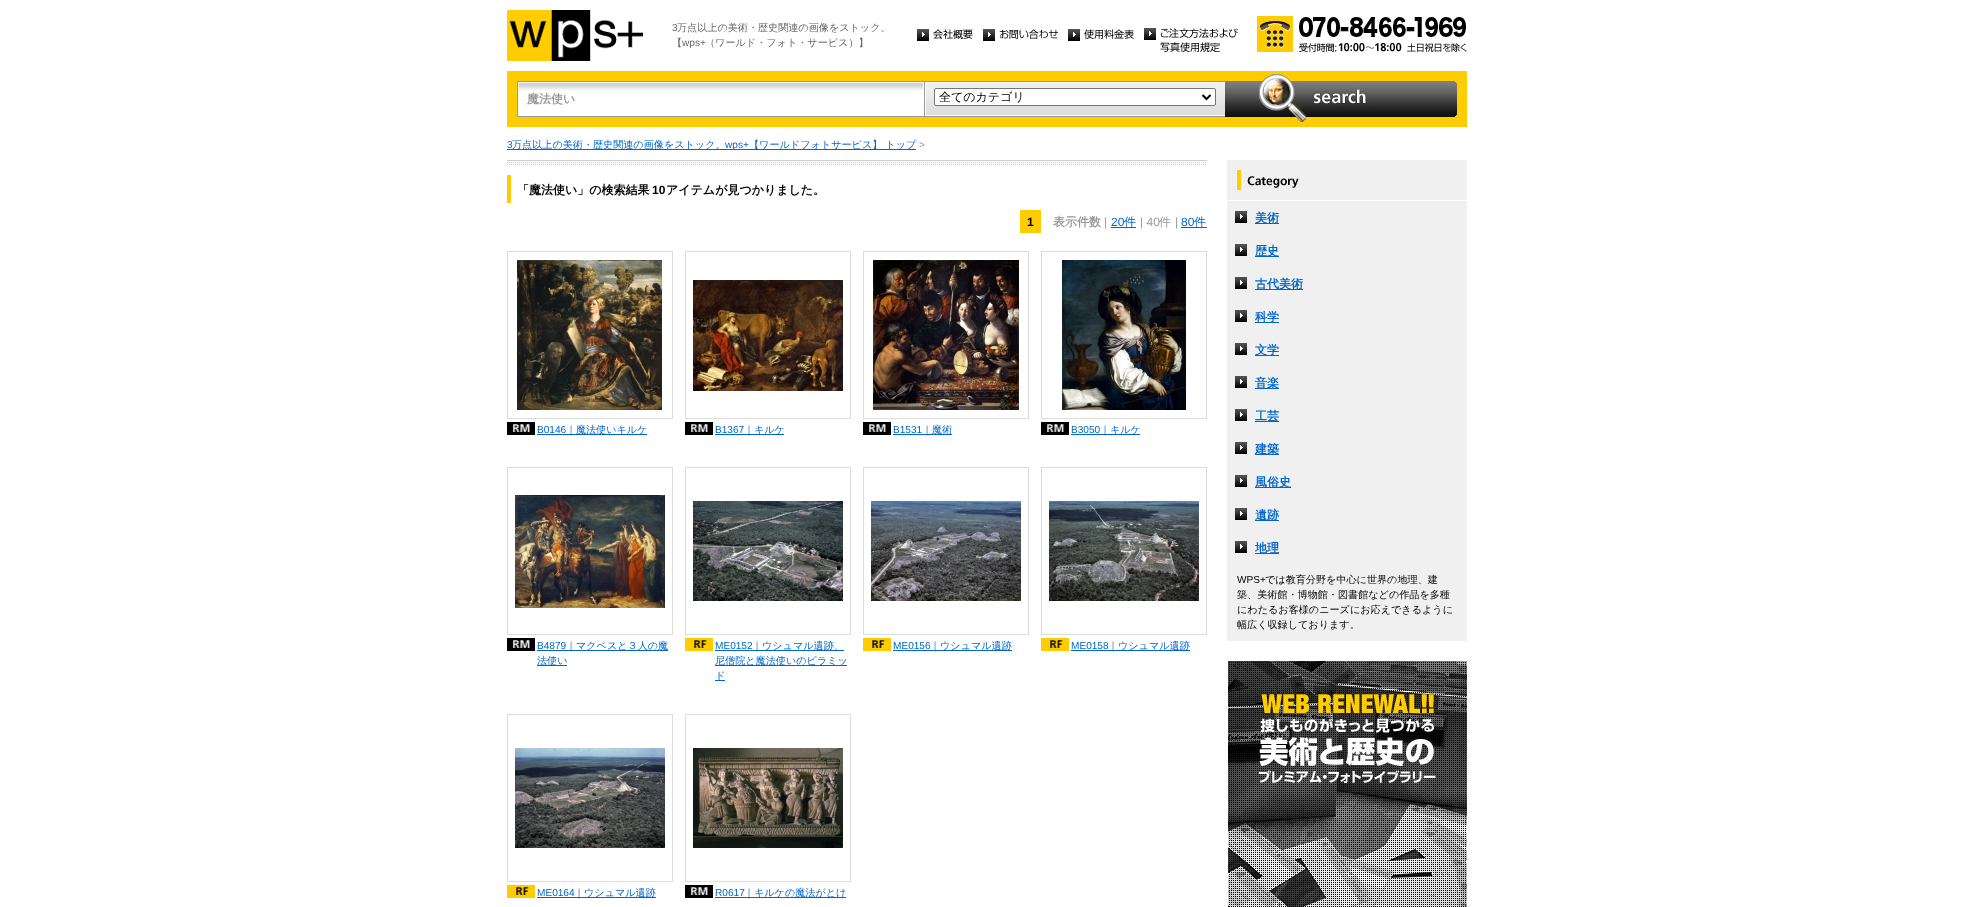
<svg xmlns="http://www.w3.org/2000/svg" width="1973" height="907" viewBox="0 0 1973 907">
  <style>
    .t1 { font: 10.1px Liberation Sans; fill: #666; }
    .t2 { font: 500 10.1px WenQuanYi Zen Hei; fill: #666; }
    .t3 { font: bold 12px WenQuanYi Zen Hei; fill: #999; }
    .t4 { font: 500 12px WenQuanYi Zen Hei; fill: #000; }
    .t5 { font: 10.1px Liberation Sans; fill: #06c; }
    .t6 { font: 500 10.1px WenQuanYi Zen Hei; fill: #06c; }
    .t7 { font: 10.1px Liberation Sans; fill: #999; }
    .t8 { font: bold 12px WenQuanYi Zen Hei; fill: #000; }
    .t9 { font: bold 12px Liberation Sans; fill: #000; }
    .t10 { font: 12px Liberation Sans; fill: #999; }
    .t11 { font: 12px Liberation Sans; fill: #06c; }
    .t12 { font: 500 12px WenQuanYi Zen Hei; fill: #06c; }
    .t13 { font: 500 12px WenQuanYi Zen Hei; fill: #999; }
    .t14 { font: bold 12px WenQuanYi Zen Hei; fill: #06c; }
    .t15 { font: 10.1px Liberation Sans; fill: #000; }
    .t16 { font: 500 10.1px WenQuanYi Zen Hei; fill: #000; }
  </style>
  <rect width="100%" height="100%" fill="#fff"/>
  <image x="507" y="10" width="136" height="51" href="images/1.png"/>
  <text x="672" y="31" class="t1">3</text>
  <text x="677" y="31" class="t2">万点以上の美術・歴史関連の画像をストック。</text>
  <text x="672" y="46" class="t2">【</text>
  <text x="682" y="46" class="t1">wps+</text>
  <text x="705" y="46" class="t2">（ワールド・フォト・サービス）】</text>
  <image x="917" y="29" width="56" height="12" href="images/2.png"/>
  <image x="983" y="29" width="75" height="12" href="images/3.png"/>
  <image x="1068" y="29" width="66" height="12" href="images/4.png"/>
  <image x="1144" y="28" width="94" height="24" href="images/5.png"/>
  <image x="1257" y="16" width="210" height="36" href="images/6.png"/>
  <rect x="507" y="71" width="960" height="56" fill="#fc0"/>
  <image x="517" y="81" width="407" height="36" href="images/7.png"/>
  <text x="527" y="103" class="t3">魔法使い</text>
  <image x="924" y="81" width="301" height="36" href="images/8.png"/>
  <rect x="934.5" y="88.5" width="281" height="17" rx="1.5" fill="#fff" stroke="#767676"/>
  <path d="M1202.5 95L1206.5 99L1210.5 95" fill="none" stroke="#000" stroke-width="2"/>
  <text x="939" y="101" class="t4">全てのカテゴリ</text>
  <image x="1225" y="74" width="232" height="48" href="images/9.png"/>
  <text x="507" y="148" class="t5">3</text>
  <rect x="507" y="149" width="409" height="1" fill="#06c"/>
  <text x="512" y="148" class="t6">万点以上の美術・歴史関連の画像をストック。</text>
  <text x="725" y="148" class="t5">wps+</text>
  <text x="749" y="148" class="t6">【ワールドフォトサービス】 トップ</text>
  <text x="919" y="148" class="t7">&gt;</text>
  <image x="507" y="160" width="700" height="5" href="images/10.png"/>
  <rect x="507" y="175" width="4" height="28" fill="#fc0"/>
  <text x="517" y="194" class="t8">「魔法使い」の検索結果</text>
  <text x="652" y="194" class="t9">10</text>
  <text x="666" y="194" class="t8">アイテムが見つかりました。</text>
  <rect x="1020" y="210" width="21" height="23" fill="#fc0"/>
  <text x="1027" y="226" class="t9">1</text>
  <text x="1053" y="226" class="t3">表示件数</text>
  <text x="1104" y="226" class="t10">|</text>
  <text x="1111" y="226" class="t11">20</text>
  <rect x="1111" y="227" width="25" height="1" fill="#06c"/>
  <text x="1124" y="226" class="t12">件</text>
  <text x="1140" y="226" class="t10">| 40</text>
  <text x="1159" y="226" class="t13">件</text>
  <text x="1175" y="226" class="t10">|</text>
  <text x="1181" y="226" class="t11">80</text>
  <rect x="1181" y="227" width="26" height="1" fill="#06c"/>
  <text x="1194" y="226" class="t12">件</text>
  <rect x="507" y="251" width="166" height="1" fill="#dcdcdc"/>
  <rect x="672" y="251" width="1" height="168" fill="#dcdcdc"/>
  <rect x="507" y="418" width="166" height="1" fill="#dcdcdc"/>
  <rect x="507" y="251" width="1" height="168" fill="#dcdcdc"/>
  <image x="517" y="260" width="145" height="150" href="images/11.png"/>
  <image x="507" y="422" width="28" height="13" href="images/12.png"/>
  <text x="537" y="433" class="t5">B0146</text>
  <rect x="537" y="434" width="110" height="1" fill="#06c"/>
  <text x="566" y="433" class="t6">｜魔法使いキルケ</text>
  <rect x="685" y="251" width="166" height="1" fill="#dcdcdc"/>
  <rect x="850" y="251" width="1" height="168" fill="#dcdcdc"/>
  <rect x="685" y="418" width="166" height="1" fill="#dcdcdc"/>
  <rect x="685" y="251" width="1" height="168" fill="#dcdcdc"/>
  <image x="693" y="280" width="150" height="111" href="images/13.png"/>
  <image x="685" y="422" width="28" height="13" href="images/12.png"/>
  <text x="715" y="433" class="t5">B1367</text>
  <rect x="715" y="434" width="69" height="1" fill="#06c"/>
  <text x="744" y="433" class="t6">｜キルケ</text>
  <rect x="863" y="251" width="166" height="1" fill="#dcdcdc"/>
  <rect x="1028" y="251" width="1" height="168" fill="#dcdcdc"/>
  <rect x="863" y="418" width="166" height="1" fill="#dcdcdc"/>
  <rect x="863" y="251" width="1" height="168" fill="#dcdcdc"/>
  <image x="873" y="260" width="146" height="150" href="images/14.png"/>
  <image x="863" y="422" width="28" height="13" href="images/15.png"/>
  <text x="893" y="433" class="t5">B1531</text>
  <rect x="893" y="434" width="59" height="1" fill="#06c"/>
  <text x="922" y="433" class="t6">｜魔術</text>
  <rect x="1041" y="251" width="166" height="1" fill="#dcdcdc"/>
  <rect x="1206" y="251" width="1" height="168" fill="#dcdcdc"/>
  <rect x="1041" y="418" width="166" height="1" fill="#dcdcdc"/>
  <rect x="1041" y="251" width="1" height="168" fill="#dcdcdc"/>
  <image x="1062" y="260" width="124" height="150" href="images/16.png"/>
  <image x="1041" y="422" width="28" height="13" href="images/12.png"/>
  <text x="1071" y="433" class="t5">B3050</text>
  <rect x="1071" y="434" width="69" height="1" fill="#06c"/>
  <text x="1100" y="433" class="t6">｜キルケ</text>
  <rect x="507" y="467" width="166" height="1" fill="#dcdcdc"/>
  <rect x="672" y="467" width="1" height="168" fill="#dcdcdc"/>
  <rect x="507" y="634" width="166" height="1" fill="#dcdcdc"/>
  <rect x="507" y="467" width="1" height="168" fill="#dcdcdc"/>
  <image x="515" y="495" width="150" height="113" href="images/17.png"/>
  <image x="507" y="638" width="28" height="13" href="images/12.png"/>
  <text x="537" y="649" class="t5">B4879</text>
  <rect x="537" y="650" width="131" height="1" fill="#06c"/>
  <text x="566" y="649" class="t6">｜マクベスと３人の魔</text>
  <rect x="537" y="665" width="30" height="1" fill="#06c"/>
  <text x="537" y="664" class="t6">法使い</text>
  <rect x="685" y="467" width="166" height="1" fill="#dcdcdc"/>
  <rect x="850" y="467" width="1" height="168" fill="#dcdcdc"/>
  <rect x="685" y="634" width="166" height="1" fill="#dcdcdc"/>
  <rect x="685" y="467" width="1" height="168" fill="#dcdcdc"/>
  <image x="693" y="501" width="150" height="100" href="images/18.png"/>
  <image x="685" y="638" width="28" height="13" href="images/19.png"/>
  <text x="715" y="649" class="t5">ME0152</text>
  <rect x="715" y="650" width="129" height="1" fill="#06c"/>
  <text x="752" y="649" class="t6">｜ウシュマル遺跡、</text>
  <rect x="715" y="665" width="132" height="1" fill="#06c"/>
  <text x="715" y="664" class="t6">尼僧院と魔法使いのピラミッ</text>
  <rect x="715" y="680" width="10" height="1" fill="#06c"/>
  <text x="715" y="679" class="t6">ド</text>
  <rect x="863" y="467" width="166" height="1" fill="#dcdcdc"/>
  <rect x="1028" y="467" width="1" height="168" fill="#dcdcdc"/>
  <rect x="863" y="634" width="166" height="1" fill="#dcdcdc"/>
  <rect x="863" y="467" width="1" height="168" fill="#dcdcdc"/>
  <image x="871" y="501" width="150" height="100" href="images/20.png"/>
  <image x="863" y="638" width="28" height="13" href="images/21.png"/>
  <text x="893" y="649" class="t5">ME0156</text>
  <rect x="893" y="650" width="119" height="1" fill="#06c"/>
  <text x="930" y="649" class="t6">｜ウシュマル遺跡</text>
  <rect x="1041" y="467" width="166" height="1" fill="#dcdcdc"/>
  <rect x="1206" y="467" width="1" height="168" fill="#dcdcdc"/>
  <rect x="1041" y="634" width="166" height="1" fill="#dcdcdc"/>
  <rect x="1041" y="467" width="1" height="168" fill="#dcdcdc"/>
  <image x="1049" y="501" width="150" height="100" href="images/22.png"/>
  <image x="1041" y="638" width="28" height="13" href="images/19.png"/>
  <text x="1071" y="649" class="t5">ME0158</text>
  <rect x="1071" y="650" width="119" height="1" fill="#06c"/>
  <text x="1108" y="649" class="t6">｜ウシュマル遺跡</text>
  <rect x="507" y="714" width="166" height="1" fill="#dcdcdc"/>
  <rect x="672" y="714" width="1" height="168" fill="#dcdcdc"/>
  <rect x="507" y="881" width="166" height="1" fill="#dcdcdc"/>
  <rect x="507" y="714" width="1" height="168" fill="#dcdcdc"/>
  <image x="515" y="748" width="150" height="100" href="images/23.png"/>
  <image x="507" y="885" width="28" height="13" href="images/19.png"/>
  <text x="537" y="896" class="t5">ME0164</text>
  <rect x="537" y="897" width="119" height="1" fill="#06c"/>
  <text x="574" y="896" class="t6">｜ウシュマル遺跡</text>
  <rect x="685" y="714" width="166" height="1" fill="#dcdcdc"/>
  <rect x="850" y="714" width="1" height="168" fill="#dcdcdc"/>
  <rect x="685" y="881" width="166" height="1" fill="#dcdcdc"/>
  <rect x="685" y="714" width="1" height="168" fill="#dcdcdc"/>
  <image x="693" y="748" width="150" height="100" href="images/24.png"/>
  <image x="685" y="885" width="28" height="13" href="images/12.png"/>
  <text x="715" y="896" class="t5">R0617</text>
  <rect x="715" y="897" width="131" height="1" fill="#06c"/>
  <text x="744" y="896" class="t6">｜キルケの魔法がとけ</text>
  <image x="1227" y="160" width="240" height="40" href="images/25.png"/>
  <rect x="1227" y="201" width="240" height="440" fill="#f0f0f0"/>
  <image x="1235" y="211" width="12" height="12" href="images/26.png"/>
  <rect x="1255" y="223" width="24" height="1" fill="#06c"/>
  <text x="1255" y="222" class="t14">美術</text>
  <image x="1235" y="244" width="12" height="12" href="images/26.png"/>
  <rect x="1255" y="256" width="24" height="1" fill="#06c"/>
  <text x="1255" y="255" class="t14">歴史</text>
  <image x="1235" y="277" width="12" height="12" href="images/26.png"/>
  <rect x="1255" y="289" width="48" height="1" fill="#06c"/>
  <text x="1255" y="288" class="t14">古代美術</text>
  <image x="1235" y="310" width="12" height="12" href="images/26.png"/>
  <rect x="1255" y="322" width="24" height="1" fill="#06c"/>
  <text x="1255" y="321" class="t14">科学</text>
  <image x="1235" y="343" width="12" height="12" href="images/26.png"/>
  <rect x="1255" y="355" width="24" height="1" fill="#06c"/>
  <text x="1255" y="354" class="t14">文学</text>
  <image x="1235" y="376" width="12" height="12" href="images/26.png"/>
  <rect x="1255" y="388" width="24" height="1" fill="#06c"/>
  <text x="1255" y="387" class="t14">音楽</text>
  <image x="1235" y="409" width="12" height="12" href="images/26.png"/>
  <rect x="1255" y="421" width="24" height="1" fill="#06c"/>
  <text x="1255" y="420" class="t14">工芸</text>
  <image x="1235" y="442" width="12" height="12" href="images/26.png"/>
  <rect x="1255" y="454" width="24" height="1" fill="#06c"/>
  <text x="1255" y="453" class="t14">建築</text>
  <image x="1235" y="475" width="12" height="12" href="images/26.png"/>
  <rect x="1255" y="487" width="36" height="1" fill="#06c"/>
  <text x="1255" y="486" class="t14">風俗史</text>
  <image x="1235" y="508" width="12" height="12" href="images/26.png"/>
  <rect x="1255" y="520" width="24" height="1" fill="#06c"/>
  <text x="1255" y="519" class="t14">遺跡</text>
  <image x="1235" y="541" width="12" height="12" href="images/26.png"/>
  <rect x="1255" y="553" width="24" height="1" fill="#06c"/>
  <text x="1255" y="552" class="t14">地理</text>
  <text x="1237" y="583" class="t15">WPS+</text>
  <text x="1265" y="583" class="t16">では教育分野を中心に世界の地理、建</text>
  <text x="1237" y="598" class="t16">築、美術館・博物館・図書館などの作品を多種</text>
  <text x="1237" y="613" class="t16">にわたるお客様のニーズにお応えできるように</text>
  <text x="1237" y="628" class="t16">幅広く収録しております。</text>
  <image x="1228" y="661" width="239" height="246" href="images/27.png"/>
</svg>
